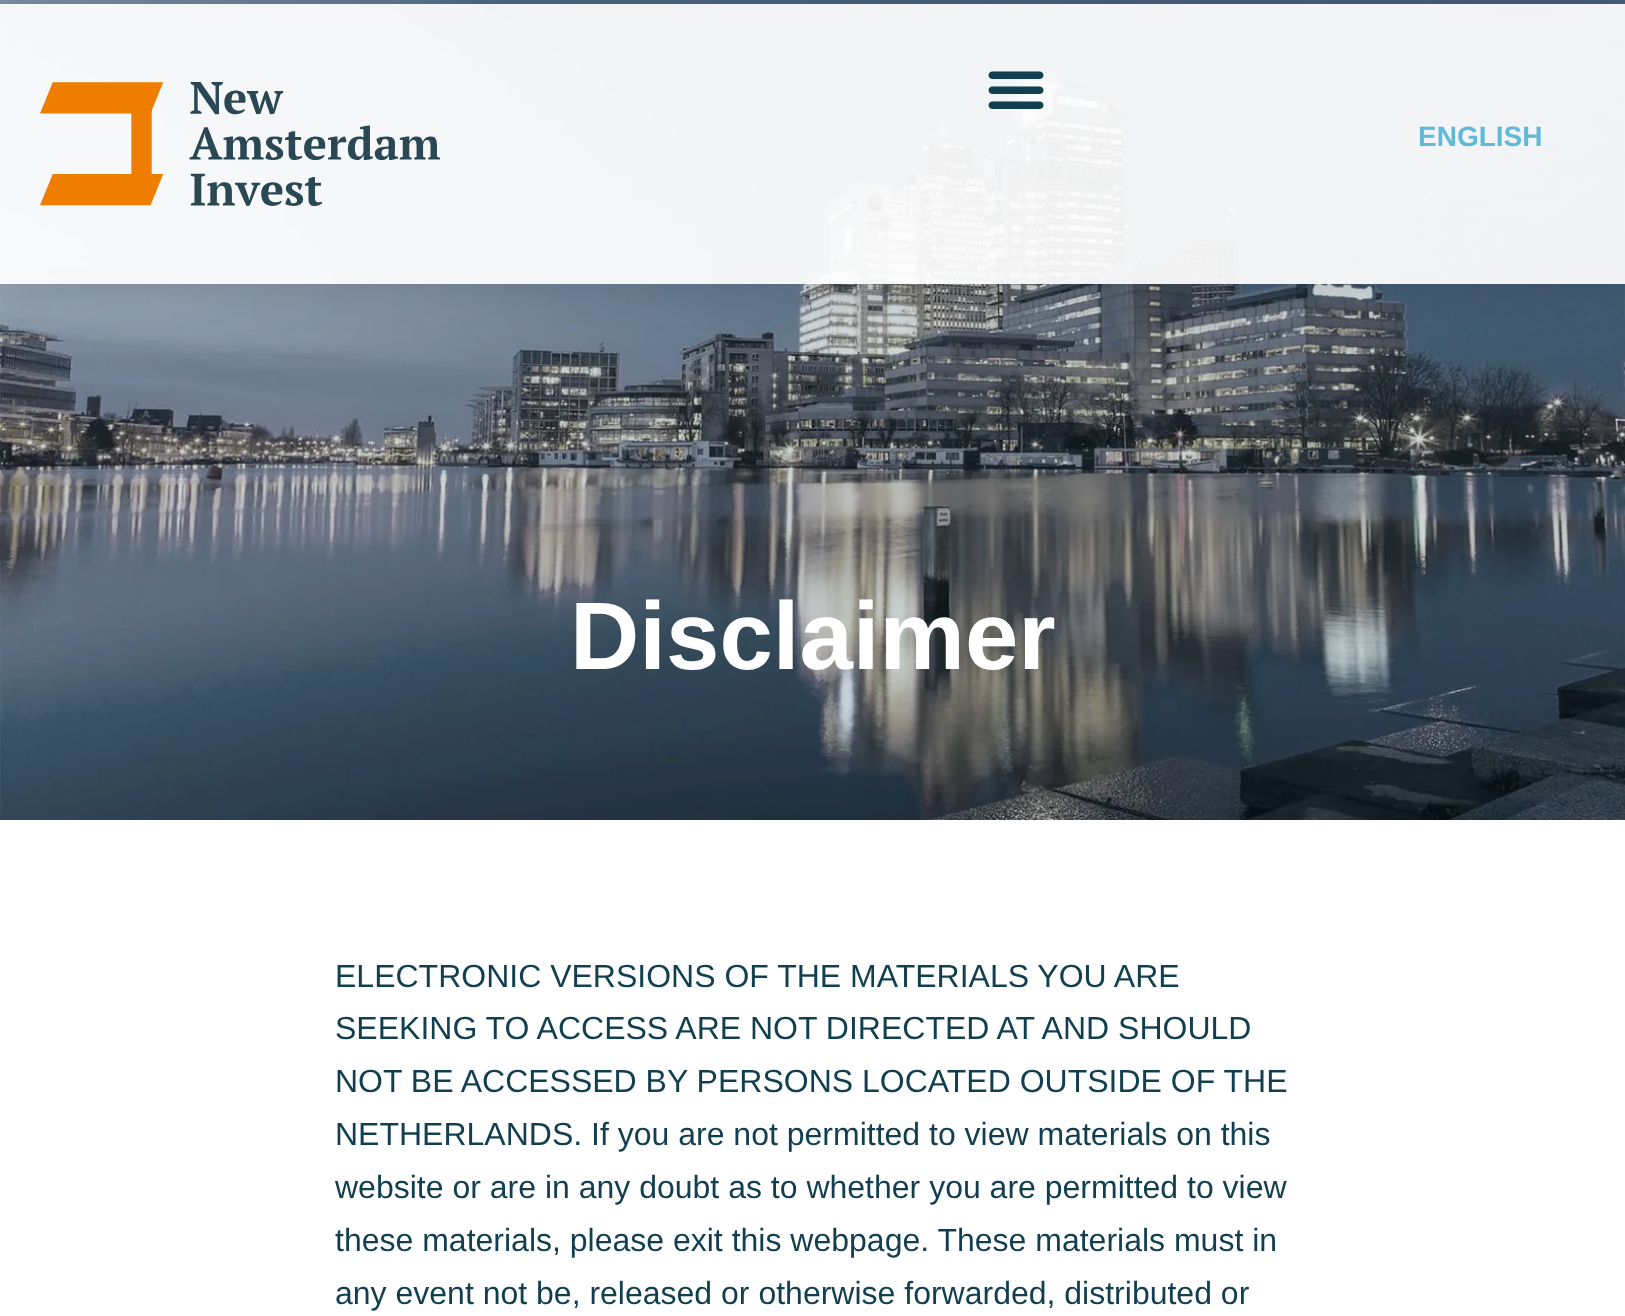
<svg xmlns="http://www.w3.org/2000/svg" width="1625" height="1316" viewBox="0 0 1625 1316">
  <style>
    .t1 { font: bold 28px Liberation Sans; fill: #61b9d8; }
    .t2 { font: bold 96px Liberation Sans; fill: #fff; }
    .t3 { font: 32px Liberation Sans; fill: #123f50; }
  </style>
  <defs>
    <clipPath id="clip1"><path d="M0 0H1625V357H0ZM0 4H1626V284H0Z" clip-rule="evenodd"/></clipPath>
  </defs>
  <rect width="100%" height="100%" fill="#fff"/>
  <image x="0" y="0" width="1625" height="820" href="images/3.png"/>
  <g clip-path="url(#clip1)">
    <rect x="0" y="4" width="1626" height="280" fill="#00000026" filter="blur(24px)"/>
  </g>
  <rect x="0" y="4" width="1625" height="280" fill="#ffffffed"/>
  <image x="40" y="82" width="400" height="124" href="images/1.png"/>
  <image x="988" y="71" width="56" height="38" href="images/2.png"/>
  <text x="1418" y="146" class="t1">ENGLISH</text>
  <text x="570" y="669" class="t2">Disclaimer</text>
  <text x="335" y="987" class="t3">ELECTRONIC VERSIONS OF THE MATERIALS YOU ARE</text>
  <text x="335" y="1039" class="t3">SEEKING TO ACCESS ARE NOT DIRECTED AT AND SHOULD</text>
  <text x="335" y="1092" class="t3">NOT BE ACCESSED BY PERSONS LOCATED OUTSIDE OF THE</text>
  <text x="335" y="1145" class="t3">NETHERLANDS. If you are not permitted to view materials on this</text>
  <text x="335" y="1198" class="t3">website or are in any doubt as to whether you are permitted to view</text>
  <text x="335" y="1251" class="t3">these materials, please exit this webpage. These materials must in</text>
  <text x="335" y="1304" class="t3">any event not be, released or otherwise forwarded, distributed or</text>
</svg>
